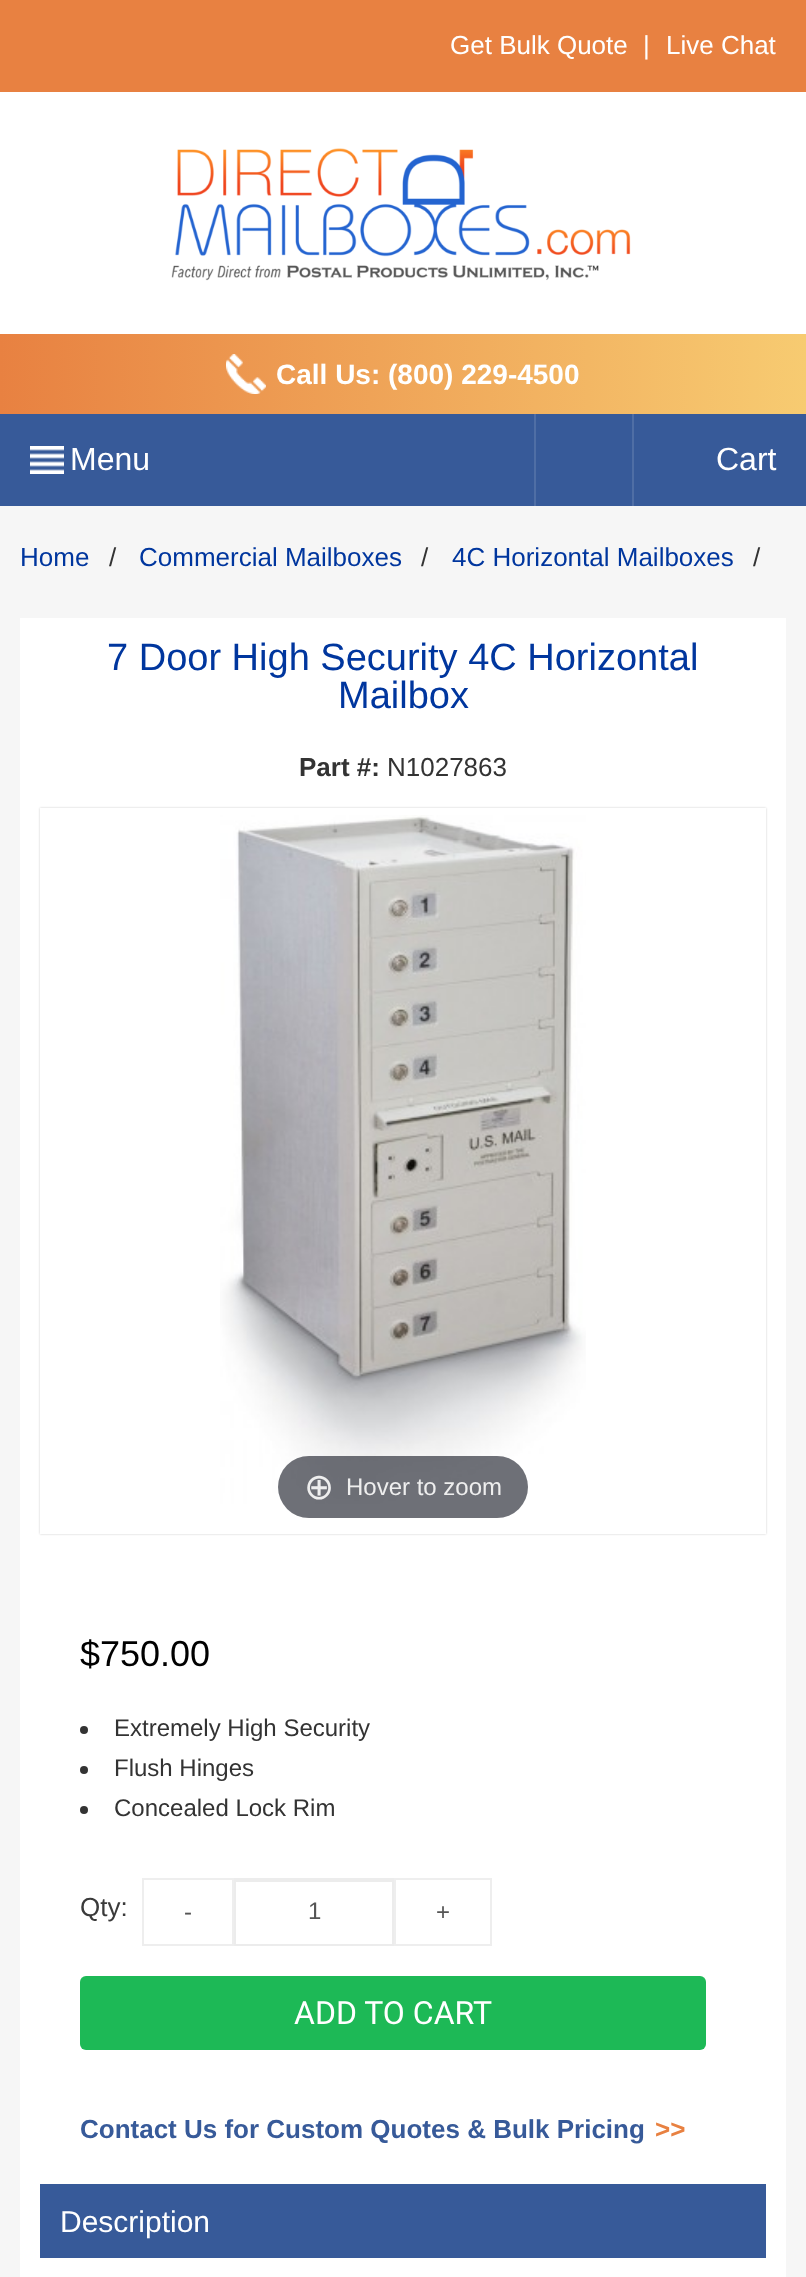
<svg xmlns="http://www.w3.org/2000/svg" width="806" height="2277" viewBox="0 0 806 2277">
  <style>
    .t1 { font: 26px Liberation Sans; fill: #fff; }
    .t2 { font: bold 28px Liberation Sans; fill: #fff; }
    .t3 { font: 32px Liberation Sans; fill: #fff; }
    .t4 { font: 26px Liberation Sans; fill: #00369e; }
    .t5 { font: 26px Liberation Sans; fill: #333; }
    .t6 { font: 38px Liberation Sans; fill: #00369e; }
    .t7 { font: bold 26px Liberation Sans; fill: #333; }
    .t8 { font: 36px DejaVu Sans; fill: #eee; }
    .t9 { font: 24px Liberation Sans; fill: #eee; }
    .t10 { font: 36px Liberation Sans; fill: #000; }
    .t11 { font: 24px Liberation Sans; fill: #333; }
    .t12 { font: 26px Liberation Sans; fill: #3a3a3a; }
    .t13 { font: 24px Liberation Sans; fill: #555; }
    .t14 { font: 32px Roboto; fill: #fff; }
    .t15 { font: bold 26px Liberation Sans; fill: #375a99; }
    .t16 { font: bold 26px Liberation Sans; fill: #e88141; }
    .t17 { font: 30px Liberation Sans; fill: #fff; }
  </style>
  <defs>
    <linearGradient id="g1" gradientUnits="userSpaceOnUse" x1="0" y1="374" x2="806" y2="374"><stop offset="0" stop-color="#e88141"/><stop offset="1" stop-color="#f7cb71"/></linearGradient>
    <clipPath id="clip1"><path d="M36 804H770V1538H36ZM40 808H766V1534H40Z" clip-rule="evenodd"/></clipPath>
  </defs>
  <rect width="100%" height="100%" fill="#fff"/>
  <rect x="0" y="0" width="806" height="92" fill="#e88141"/>
  <text x="450" y="54" class="t1">Get Bulk Quote</text>
  <text x="643" y="54" class="t1">|</text>
  <text x="666" y="54" class="t1">Live Chat</text>
  <image x="171" y="148" width="460" height="133" href="images/1.png"/>
  <rect x="0" y="334" width="806" height="80" fill="url(#g1)"/>
  <image x="226" y="354" width="40" height="40" href="images/2.png"/>
  <text x="276" y="384" class="t2">Call Us: (800) 229-4500</text>
  <rect x="0" y="414" width="806" height="92" fill="#375a99"/>
  <image x="30" y="446" width="34" height="28" href="images/3.png"/>
  <text x="70" y="470" class="t3">Menu</text>
  <rect x="534" y="414" width="2" height="92" fill="#4f6ea5"/>
  <rect x="632" y="414" width="2" height="92" fill="#4f6ea5"/>
  <text x="716" y="470" class="t3">Cart</text>
  <rect x="0" y="506" width="806" height="1771" fill="#f6f6f6"/>
  <text x="20" y="566" class="t4">Home</text>
  <text x="109" y="566" class="t5">/</text>
  <text x="139" y="566" class="t4">Commercial Mailboxes</text>
  <text x="421" y="566" class="t5">/</text>
  <text x="452" y="566" class="t4">4C Horizontal Mailboxes</text>
  <text x="753" y="566" class="t5">/</text>
  <rect x="20" y="618" width="766" height="1659" fill="#fff"/>
  <text x="107" y="670" class="t6">7 Door High Security 4C Horizontal</text>
  <text x="338" y="708" class="t6">Mailbox</text>
  <text x="299" y="776" class="t7">Part #:</text>
  <text x="387" y="776" class="t5">N1027863</text>
  <g clip-path="url(#clip1)">
    <rect x="40" y="808" width="726" height="726" fill="#00000033" filter="blur(1px)"/>
  </g>
  <image x="220" y="815" width="366" height="689" href="images/4.png"/>
  <rect x="278" y="1456" width="250" height="62" rx="31" fill="#31333db3"/>
  <text x="304" y="1499" class="t8">⊕</text>
  <text x="346" y="1495" class="t9">Hover to zoom</text>
  <text x="80" y="1666" class="t10">$750.00</text>
  <circle cx="84" cy="1730" r="4" fill="#333"/>
  <text x="114" y="1736" class="t11">Extremely High Security</text>
  <circle cx="84" cy="1770" r="4" fill="#333"/>
  <text x="114" y="1776" class="t11">Flush Hinges</text>
  <circle cx="84" cy="1810" r="4" fill="#333"/>
  <text x="114" y="1816" class="t11">Concealed Lock Rim</text>
  <text x="80" y="1916" class="t12">Qty:</text>
  <rect x="143" y="1879" width="90" height="66" fill="none" stroke="#eee" stroke-width="2"/>
  <text x="184" y="1920" class="t13">-</text>
  <rect x="236" y="1880" width="156" height="2" fill="#ececec"/>
  <rect x="235" y="1879" width="158" height="66" fill="none" stroke="#ececec" stroke-width="2"/>
  <text x="308" y="1919" class="t13">1</text>
  <rect x="395" y="1879" width="96" height="66" fill="none" stroke="#eee" stroke-width="2"/>
  <text x="436" y="1920" class="t13">+</text>
  <rect x="80" y="1976" width="626" height="74" rx="6" fill="#1db956"/>
  <text x="294" y="2024" class="t14">ADD TO CART</text>
  <text x="80" y="2138" class="t15">Contact Us for Custom Quotes &amp; Bulk Pricing</text>
  <text x="655" y="2138" class="t16">&gt;&gt;</text>
  <rect x="40" y="2184" width="726" height="74" fill="#375a99"/>
  <text x="60" y="2232" class="t17">Description</text>
</svg>
